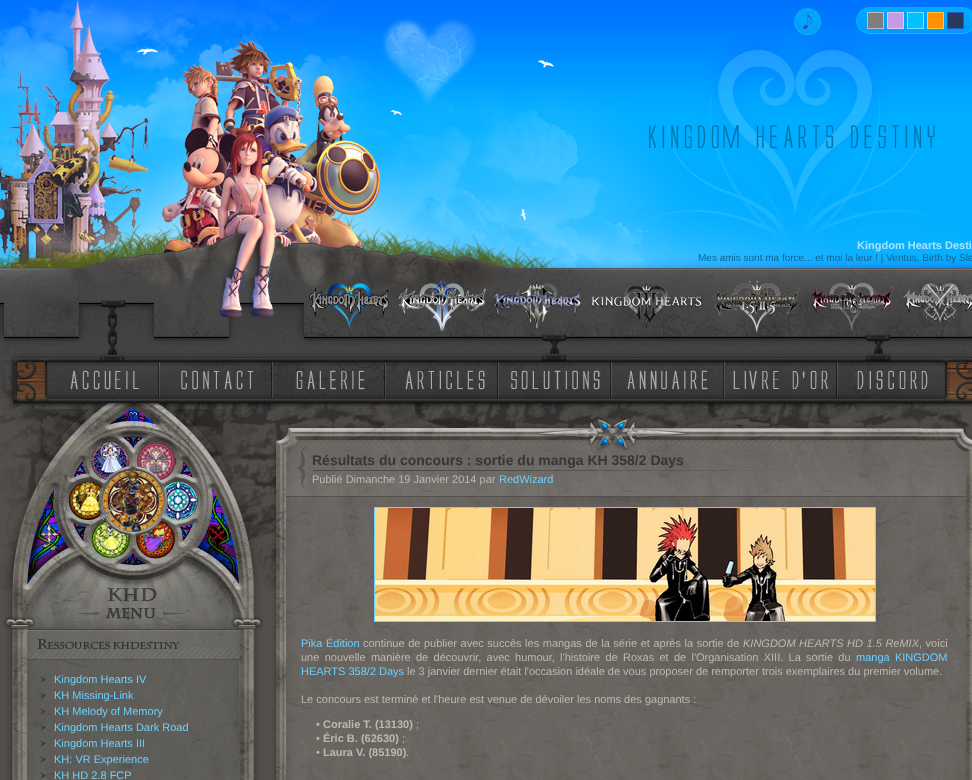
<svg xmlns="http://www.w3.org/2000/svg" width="972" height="780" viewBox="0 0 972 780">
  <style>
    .t1 { font: bold 11px Liberation Sans; fill: #a6e2ff; }
    .t2 { font: 10px Liberation Sans; fill: #0a6592; }
    .t3 { font: 11px Liberation Sans; fill: #6dd0fe; }
    .t4 { font: bold 14px Liberation Sans; fill: #373636; }
    .t5 { font: 11px Liberation Sans; fill: #beb9ae; }
    .t6 { font: italic 11px Liberation Sans; fill: #beb9ae; }
    .t7 { font: bold 11px Liberation Sans; fill: #beb9ae; }
  </style>
  <rect width="100%" height="100%" fill="#53504c"/>
  <image x="0" y="0" width="972" height="630" href="images/3.png"/>
  <image x="793" y="7" width="30" height="30" href="images/1.png"/>
  <image x="856" y="7" width="116" height="27" href="images/2.png"/>
  <rect x="867.5" y="12.5" width="16" height="16" fill="#7e7e7e" stroke="#bdbdbd"/>
  <rect x="887.5" y="12.5" width="16" height="16" fill="#c49be4" stroke="#e0c8f2"/>
  <rect x="907.5" y="12.5" width="16" height="16" fill="#00c0ff" stroke="#80e0ff"/>
  <rect x="927.5" y="12.5" width="16" height="16" fill="#ff9000" stroke="#ffc844"/>
  <rect x="947.5" y="12.5" width="16" height="16" fill="#2a385d" stroke="#2a56c8"/>
  <text x="857" y="249" class="t1">Kingdom Hearts Desti</text>
  <text x="698" y="261" class="t2">Mes amis sont ma force... et moi la leur ! | Ventus, Birth by Sle</text>
  <image x="309" y="279" width="663" height="53" href="images/4.png"/>
  <image x="46" y="362" width="904" height="36" href="images/5.png"/>
  <image x="6" y="630" width="254" height="150" href="images/6.png"/>
  <image x="27" y="630" width="212" height="30" href="images/7.png"/>
  <image x="40" y="676" width="7" height="7" href="images/8.png"/>
  <text x="54" y="683" class="t3">Kingdom Hearts IV</text>
  <image x="40" y="692" width="7" height="7" href="images/9.png"/>
  <text x="54" y="699" class="t3">KH Missing-Link</text>
  <image x="40" y="708" width="7" height="7" href="images/10.png"/>
  <text x="54" y="715" class="t3">KH Melody of Memory</text>
  <image x="40" y="724" width="7" height="7" href="images/11.png"/>
  <text x="54" y="731" class="t3">Kingdom Hearts Dark Road</text>
  <image x="40" y="740" width="7" height="7" href="images/12.png"/>
  <text x="54" y="747" class="t3">Kingdom Hearts III</text>
  <image x="40" y="756" width="7" height="7" href="images/13.png"/>
  <text x="54" y="763" class="t3">KH: VR Experience</text>
  <image x="40" y="772" width="6" height="7" href="images/14.png"/>
  <text x="54" y="779" class="t3">KH HD 2.8 FCP</text>
  <image x="266" y="597" width="706" height="183" href="images/15.png"/>
  <image x="266" y="417" width="706" height="180" href="images/16.png"/>
  <text x="312" y="465" class="t4">Résultats du concours : sortie du manga KH 358/2 Days</text>
  <text x="312" y="483" class="t5">Publié Dimanche 19 Janvier 2014 par</text>
  <text x="499" y="483" class="t3">RedWizard</text>
  <rect x="374.5" y="507.5" width="501" height="114" fill="none" stroke="#6dd0fe"/>
  <image x="375" y="508" width="500" height="113" href="images/17.png"/>
  <text x="301" y="647" word-spacing="0.5" class="t3">Pika Édition</text>
  <text x="363" y="647" word-spacing="0.5" class="t5">continue de publier avec succès les mangas de la série et après la sortie de</text>
  <text x="743" y="647" word-spacing="0.5" class="t6">KINGDOM HEARTS HD 1.5 ReMIX</text>
  <text x="919" y="647" word-spacing="0.5" class="t5">, voici</text>
  <text x="301" y="661" word-spacing="2.25" class="t5">une nouvelle manière de découvrir, avec humour, l'histoire de Roxas et de l'Organisation XIII. La sortie du</text>
  <text x="856" y="661" word-spacing="2.25" class="t3">manga KINGDOM</text>
  <text x="301" y="675" class="t3">HEARTS 358/2 Days</text>
  <text x="407" y="675" class="t5">le 3 janvier dernier était l'occasion idéale de vous proposer de remporter trois exemplaires du premier volume.</text>
  <text x="301" y="703" class="t5">Le concours est terminé et l'heure est venue de dévoiler les noms des gagnants :</text>
  <text x="316" y="728" class="t5">•</text>
  <text x="323" y="728" class="t7">Coralie T. (13130)</text>
  <text x="416" y="728" class="t5">;</text>
  <text x="316" y="742" class="t5">•</text>
  <text x="323" y="742" class="t7">Éric B. (62630)</text>
  <text x="402" y="742" class="t5">;</text>
  <text x="316" y="756" class="t5">•</text>
  <text x="323" y="756" class="t7">Laura V. (85190)</text>
  <text x="406" y="756" class="t5">.</text>
</svg>
